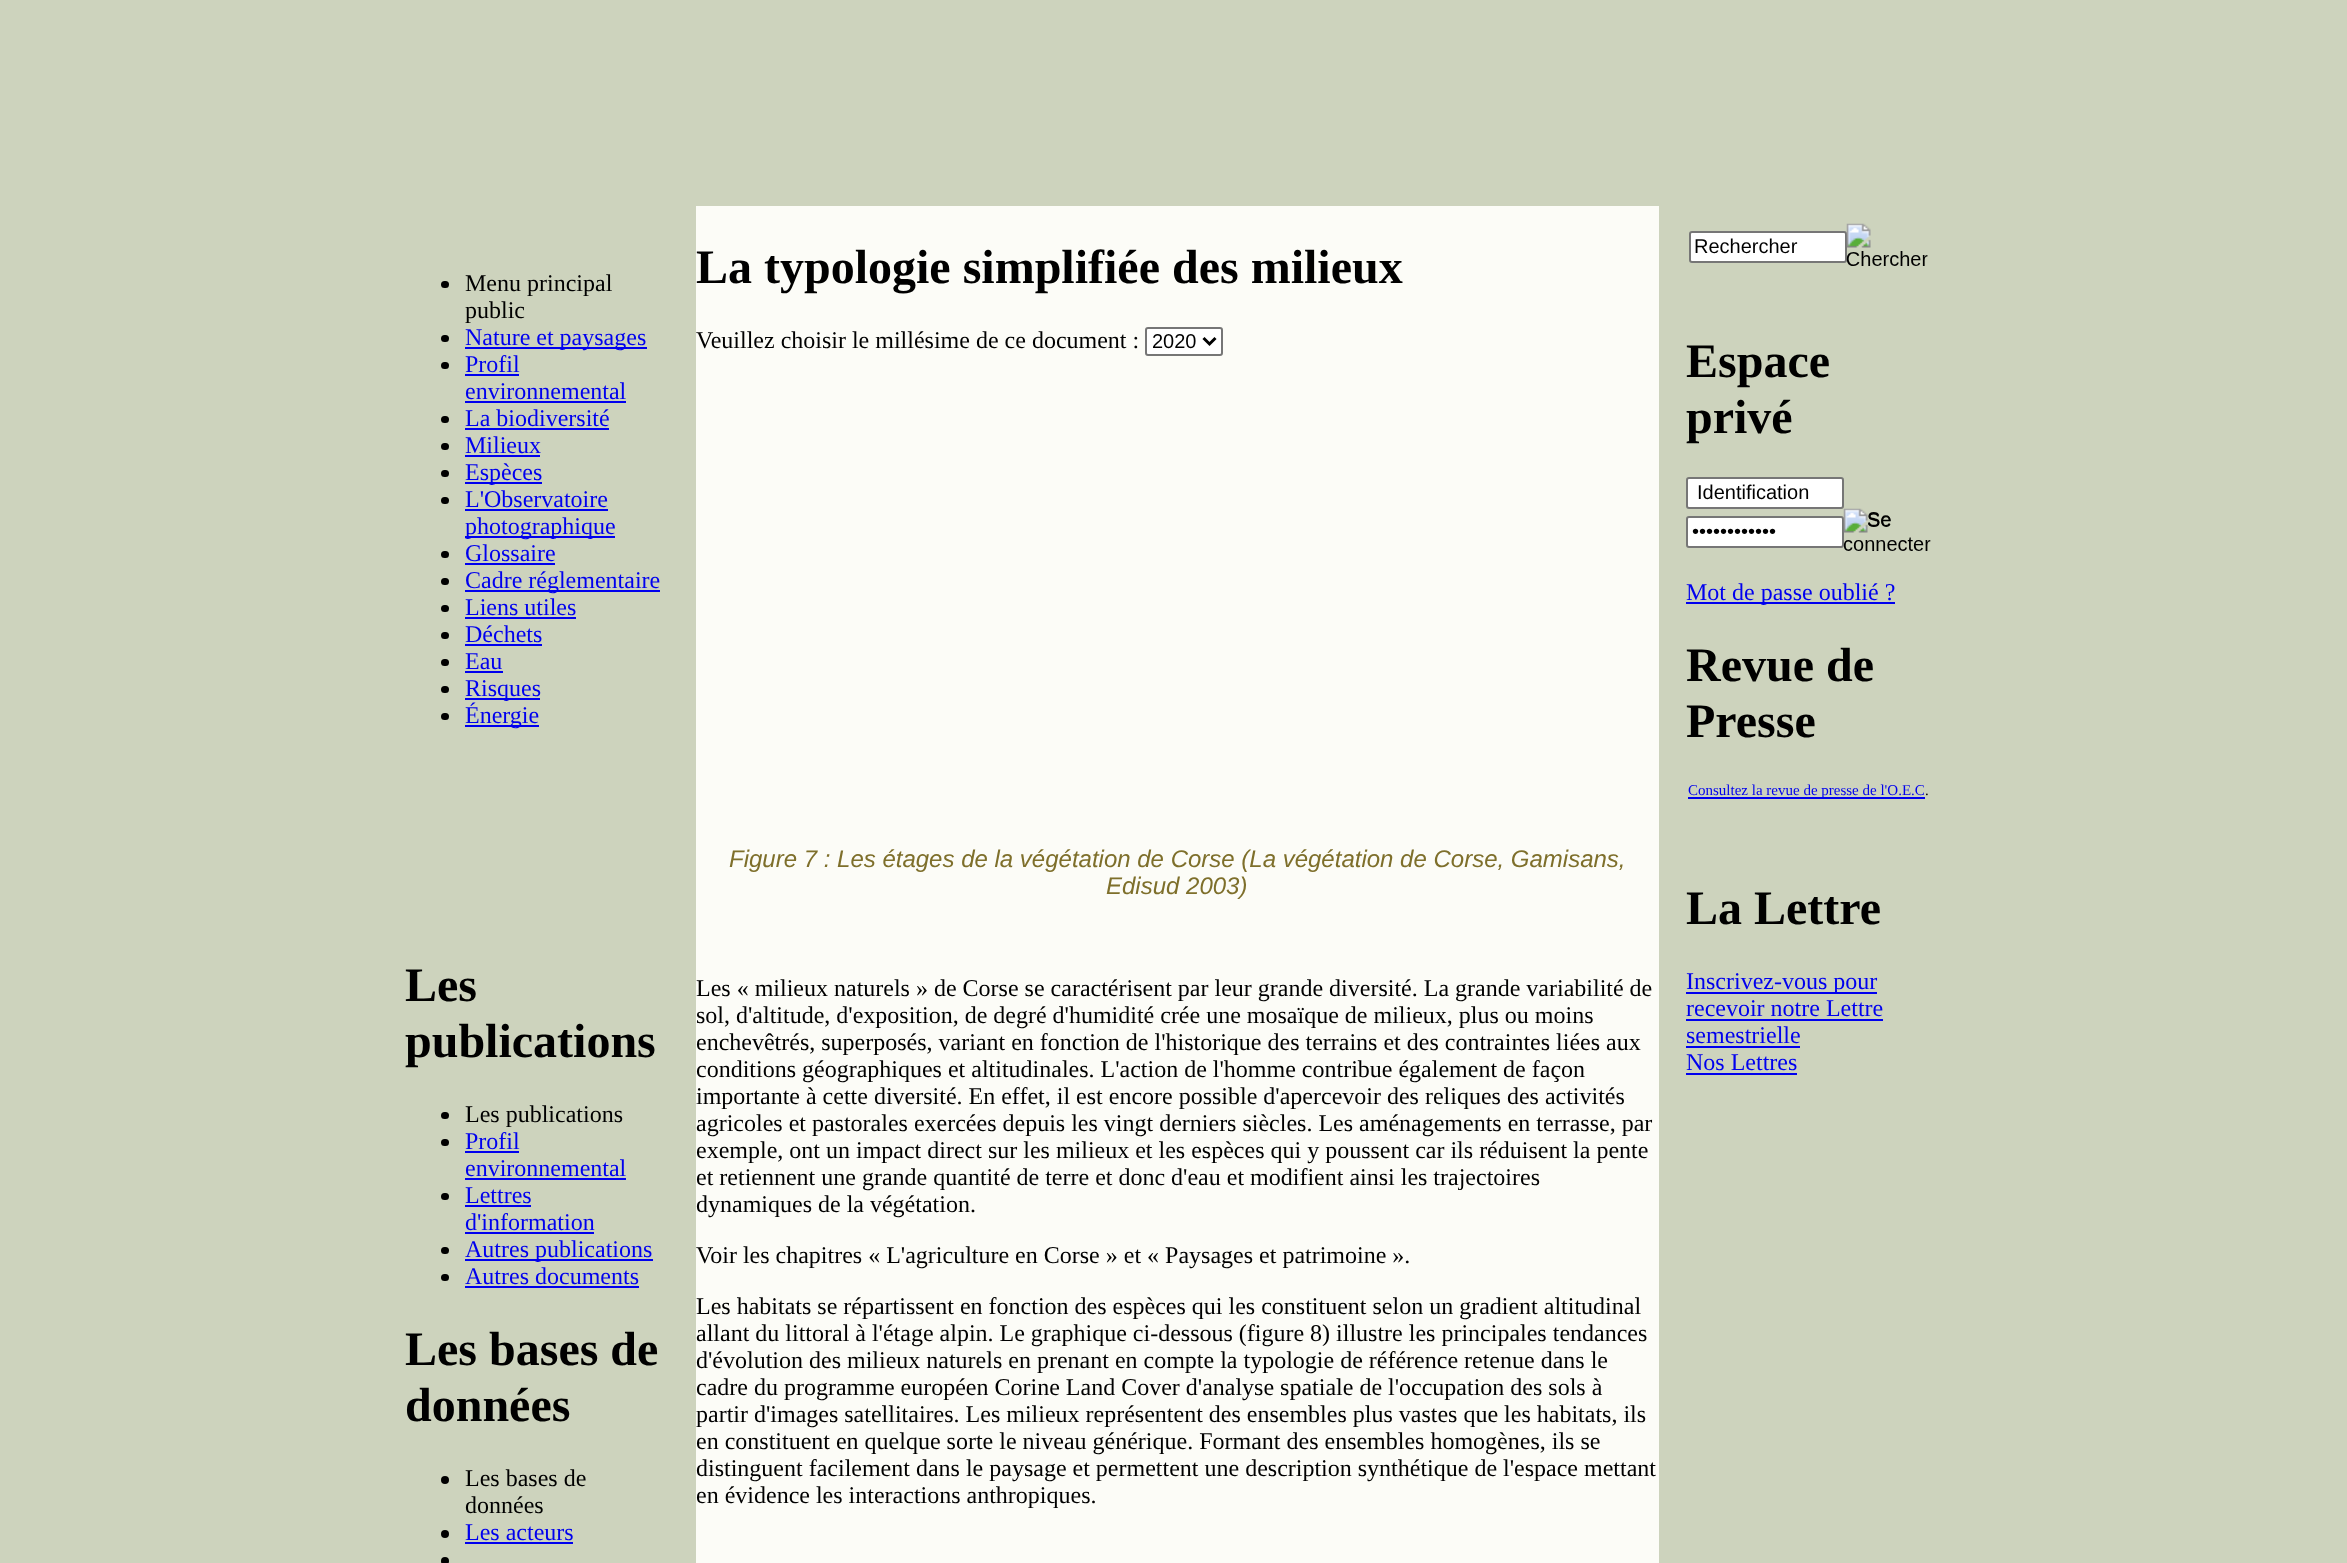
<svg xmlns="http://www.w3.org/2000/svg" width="2347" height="1563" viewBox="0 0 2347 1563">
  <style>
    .t1 { font: 24px Liberation Serif; fill: #000; }
    .t2 { font: 24px Liberation Serif; fill: #00e; }
    .t3 { font: bold 48px Liberation Serif; fill: #000; }
    .t4 { font: 20px Liberation Sans; fill: #000; }
    .t5 { font: italic 24px Liberation Sans; fill: #7e6f2b; }
    .t6 { font: 15px Liberation Serif; fill: #00e; }
    .t7 { font: 15px Liberation Serif; fill: #000; }
  </style>
  <rect width="100%" height="100%" fill="#cdd3bd"/>
  <rect x="441" y="281" width="8" height="7" rx="3.5" fill="#000"/>
  <text x="465" y="291" class="t1">Menu principal</text>
  <text x="465" y="318" class="t1">public</text>
  <rect x="441" y="335" width="8" height="7" rx="3.5" fill="#000"/>
  <rect x="465" y="347" width="182" height="2" fill="#00e"/>
  <text x="465" y="345" class="t2">Nature et paysages</text>
  <rect x="441" y="362" width="8" height="7" rx="3.5" fill="#000"/>
  <text x="465" y="372" class="t2">Profil</text>
  <rect x="465" y="374" width="54" height="2" fill="#00e"/>
  <text x="465" y="399" class="t2">environnemental</text>
  <rect x="465" y="401" width="161" height="2" fill="#00e"/>
  <rect x="441" y="416" width="8" height="7" rx="3.5" fill="#000"/>
  <text x="465" y="426" class="t2">La biodiversité</text>
  <rect x="465" y="428" width="144" height="2" fill="#00e"/>
  <rect x="441" y="443" width="8" height="7" rx="3.5" fill="#000"/>
  <text x="465" y="453" class="t2">Milieux</text>
  <rect x="465" y="455" width="75" height="2" fill="#00e"/>
  <rect x="441" y="470" width="8" height="7" rx="3.5" fill="#000"/>
  <rect x="465" y="482" width="77" height="2" fill="#00e"/>
  <text x="465" y="480" class="t2">Espèces</text>
  <rect x="441" y="497" width="8" height="7" rx="3.5" fill="#000"/>
  <text x="465" y="507" class="t2">L'Observatoire</text>
  <rect x="465" y="509" width="143" height="2" fill="#00e"/>
  <rect x="465" y="536" width="150" height="2" fill="#00e"/>
  <text x="465" y="534" class="t2">photographique</text>
  <rect x="441" y="551" width="8" height="7" rx="3.5" fill="#000"/>
  <text x="465" y="561" class="t2">Glossaire</text>
  <rect x="465" y="563" width="90" height="2" fill="#00e"/>
  <rect x="441" y="578" width="8" height="7" rx="3.5" fill="#000"/>
  <rect x="465" y="590" width="195" height="2" fill="#00e"/>
  <text x="465" y="588" class="t2">Cadre réglementaire</text>
  <rect x="441" y="605" width="8" height="7" rx="3.5" fill="#000"/>
  <text x="465" y="615" class="t2">Liens utiles</text>
  <rect x="465" y="617" width="111" height="2" fill="#00e"/>
  <rect x="441" y="632" width="8" height="7" rx="3.5" fill="#000"/>
  <text x="465" y="642" class="t2">Déchets</text>
  <rect x="465" y="644" width="77" height="2" fill="#00e"/>
  <rect x="441" y="659" width="8" height="7" rx="3.5" fill="#000"/>
  <text x="465" y="669" class="t2">Eau</text>
  <rect x="465" y="671" width="38" height="2" fill="#00e"/>
  <rect x="441" y="686" width="8" height="7" rx="3.5" fill="#000"/>
  <rect x="465" y="698" width="75" height="2" fill="#00e"/>
  <text x="465" y="696" class="t2">Risques</text>
  <rect x="441" y="713" width="8" height="7" rx="3.5" fill="#000"/>
  <rect x="465" y="725" width="74" height="2" fill="#00e"/>
  <text x="465" y="723" class="t2">Énergie</text>
  <text x="405" y="1001" class="t3">Les</text>
  <text x="405" y="1057" class="t3">publications</text>
  <rect x="441" y="1112" width="8" height="7" rx="3.5" fill="#000"/>
  <text x="465" y="1122" class="t1">Les publications</text>
  <rect x="441" y="1139" width="8" height="7" rx="3.5" fill="#000"/>
  <text x="465" y="1149" class="t2">Profil</text>
  <rect x="465" y="1151" width="54" height="2" fill="#00e"/>
  <text x="465" y="1176" class="t2">environnemental</text>
  <rect x="465" y="1178" width="161" height="2" fill="#00e"/>
  <rect x="441" y="1193" width="8" height="7" rx="3.5" fill="#000"/>
  <text x="465" y="1203" class="t2">Lettres</text>
  <rect x="465" y="1205" width="66" height="2" fill="#00e"/>
  <text x="465" y="1230" class="t2">d'information</text>
  <rect x="465" y="1232" width="129" height="2" fill="#00e"/>
  <rect x="441" y="1247" width="8" height="7" rx="3.5" fill="#000"/>
  <rect x="465" y="1259" width="188" height="2" fill="#00e"/>
  <text x="465" y="1257" class="t2">Autres publications</text>
  <rect x="441" y="1274" width="8" height="7" rx="3.5" fill="#000"/>
  <text x="465" y="1284" class="t2">Autres documents</text>
  <rect x="465" y="1286" width="174" height="2" fill="#00e"/>
  <text x="405" y="1365" class="t3">Les bases de</text>
  <text x="405" y="1421" class="t3">données</text>
  <circle cx="445" cy="1480" r="4" fill="#000"/>
  <text x="465" y="1486" class="t1">Les bases de</text>
  <text x="465" y="1513" class="t1">données</text>
  <circle cx="445" cy="1534" r="4" fill="#000"/>
  <text x="465" y="1540" class="t2">Les acteurs</text>
  <rect x="465" y="1542" width="108" height="2" fill="#00e"/>
  <circle cx="445" cy="1561" r="4" fill="#000"/>
  <rect x="696" y="206" width="963" height="1357" fill="#fcfcf7"/>
  <text x="696" y="283" class="t3">La typologie simplifiée des milieux</text>
  <text x="696" y="348" class="t1">Veuillez choisir le millésime de ce document :</text>
  <rect x="1146" y="328" width="76" height="27" rx="2" fill="#fff" stroke="#767676" stroke-width="2"/>
  <path d="M1203.5 338L1209.5 344L1215.5 338" fill="none" stroke="#000" stroke-width="3"/>
  <text x="1152" y="348" class="t4">2020</text>
  <text x="729" y="867" class="t5">Figure 7 : Les étages de la végétation de Corse (La végétation de Corse, Gamisans,</text>
  <text x="1106" y="894" class="t5">Edisud 2003)</text>
  <text x="696" y="996" class="t1">Les « milieux naturels » de Corse se caractérisent par leur grande diversité. La grande variabilité de</text>
  <text x="696" y="1023" class="t1">sol, d'altitude, d'exposition, de degré d'humidité crée une mosaïque de milieux, plus ou moins</text>
  <text x="696" y="1050" class="t1">enchevêtrés, superposés, variant en fonction de l'historique des terrains et des contraintes liées aux</text>
  <text x="696" y="1077" class="t1">conditions géographiques et altitudinales. L'action de l'homme contribue également de façon</text>
  <text x="696" y="1104" class="t1">importante à cette diversité. En effet, il est encore possible d'apercevoir des reliques des activités</text>
  <text x="696" y="1131" class="t1">agricoles et pastorales exercées depuis les vingt derniers siècles. Les aménagements en terrasse, par</text>
  <text x="696" y="1158" class="t1">exemple, ont un impact direct sur les milieux et les espèces qui y poussent car ils réduisent la pente</text>
  <text x="696" y="1185" class="t1">et retiennent une grande quantité de terre et donc d'eau et modifient ainsi les trajectoires</text>
  <text x="696" y="1212" class="t1">dynamiques de la végétation.</text>
  <text x="696" y="1263" class="t1">Voir les chapitres « L'agriculture en Corse » et « Paysages et patrimoine ».</text>
  <text x="696" y="1314" class="t1">Les habitats se répartissent en fonction des espèces qui les constituent selon un gradient altitudinal</text>
  <text x="696" y="1341" class="t1">allant du littoral à l'étage alpin. Le graphique ci-dessous (figure 8) illustre les principales tendances</text>
  <text x="696" y="1368" class="t1">d'évolution des milieux naturels en prenant en compte la typologie de référence retenue dans le</text>
  <text x="696" y="1395" class="t1">cadre du programme européen Corine Land Cover d'analyse spatiale de l'occupation des sols à</text>
  <text x="696" y="1422" class="t1">partir d'images satellitaires. Les milieux représentent des ensembles plus vastes que les habitats, ils</text>
  <text x="696" y="1449" class="t1">en constituent en quelque sorte le niveau générique. Formant des ensembles homogènes, ils se</text>
  <text x="696" y="1476" class="t1">distinguent facilement dans le paysage et permettent une description synthétique de l'espace mettant</text>
  <text x="696" y="1503" class="t1">en évidence les interactions anthropiques.</text>
  <rect x="1690" y="232" width="156" height="30" rx="2" fill="#fff" stroke="#767676" stroke-width="2"/>
  <text x="1694" y="253" class="t4">Rechercher</text>
  <image x="1846" y="223" width="82" height="43" href="images/1.png"/>
  <text x="1686" y="377" class="t3">Espace</text>
  <text x="1686" y="433" class="t3">privé</text>
  <rect x="1687" y="478" width="156" height="30" rx="2" fill="#fff" stroke="#767676" stroke-width="2"/>
  <text x="1697" y="499" class="t4">Identification</text>
  <rect x="1687" y="517" width="156" height="30" rx="2" fill="#fff" stroke="#767676" stroke-width="2"/>
  <image x="1843" y="508" width="88" height="43" href="images/2.png"/>
  <text x="1867" y="526" class="t4">Se</text>
  <text x="1692" y="538" class="t4">••••••••••••</text>
  <rect x="1686" y="602" width="209" height="2" fill="#00e"/>
  <text x="1686" y="600" class="t2">Mot de passe oublié ?</text>
  <text x="1686" y="681" class="t3">Revue de</text>
  <text x="1686" y="737" class="t3">Presse</text>
  <rect x="1688" y="797" width="237" height="2" fill="#00e"/>
  <text x="1688" y="795" class="t6">Consultez la revue de presse de l'O.E.C</text>
  <text x="1925" y="795" class="t7">.</text>
  <text x="1686" y="924" class="t3">La Lettre</text>
  <rect x="1686" y="992" width="191" height="2" fill="#00e"/>
  <text x="1686" y="989" class="t2">Inscrivez-vous pour</text>
  <text x="1686" y="1016" class="t2">recevoir notre Lettre</text>
  <rect x="1686" y="1019" width="197" height="2" fill="#00e"/>
  <text x="1686" y="1043" class="t2">semestrielle</text>
  <rect x="1686" y="1046" width="114" height="2" fill="#00e"/>
  <text x="1686" y="1070" class="t2">Nos Lettres</text>
  <rect x="1686" y="1073" width="111" height="2" fill="#00e"/>
</svg>
